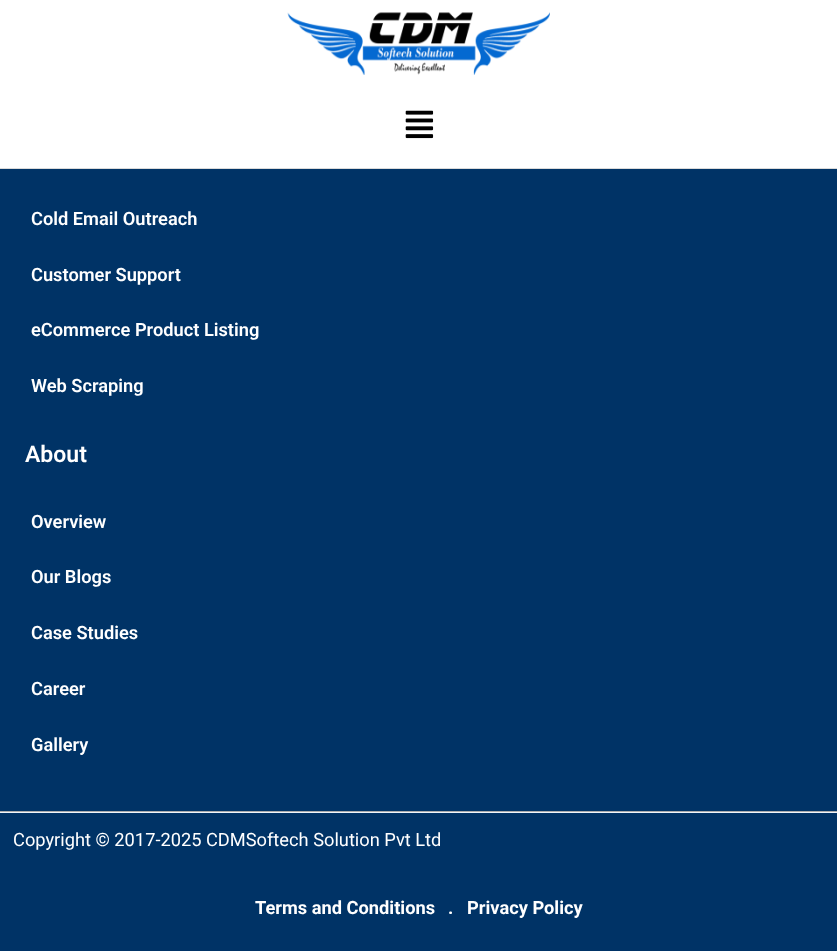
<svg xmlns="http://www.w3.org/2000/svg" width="837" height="951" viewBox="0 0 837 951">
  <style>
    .t1 { font: 600 18.25px Roboto; fill: #fff; }
    .t2 { font: 600 23px Roboto; fill: #fff; }
    .t3 { font: 18.25px Roboto; fill: #fff; }
    .t4 { font: bold 18.25px Roboto; fill: #fff; }
  </style>
  <rect width="100%" height="100%" fill="#f0f5fa"/>
  <rect x="0" y="0" width="837" height="168" fill="#fff"/>
  <rect x="0" y="168" width="837" height="1" fill="#dadada"/>
  <image x="287" y="12" width="263" height="63" href="images/1.png"/>
  <image x="405" y="110" width="29" height="29" href="images/2.png"/>
  <rect x="0" y="169" width="837" height="642" fill="#036"/>
  <text x="31" y="225" class="t1">Cold Email Outreach</text>
  <text x="31" y="281" class="t1">Customer Support</text>
  <text x="31" y="336" class="t1">eCommerce Product Listing</text>
  <text x="31" y="392" class="t1">Web Scraping</text>
  <text x="25" y="462" class="t2">About</text>
  <text x="31" y="528" class="t1">Overview</text>
  <text x="31" y="583" class="t1">Our Blogs</text>
  <text x="31" y="639" class="t1">Case Studies</text>
  <text x="31" y="695" class="t1">Career</text>
  <text x="31" y="751" class="t1">Gallery</text>
  <rect x="0" y="813" width="837" height="138" fill="#036"/>
  <rect x="0" y="811" width="837" height="1" fill="#acacac"/>
  <text x="13" y="846" class="t3">Copyright © 2017-2025 CDMSoftech Solution Pvt Ltd</text>
  <text x="255" y="914" class="t4">Terms and Conditions</text>
  <text x="448" y="914" class="t4">.</text>
  <text x="467" y="914" class="t4">Privacy Policy</text>
</svg>
